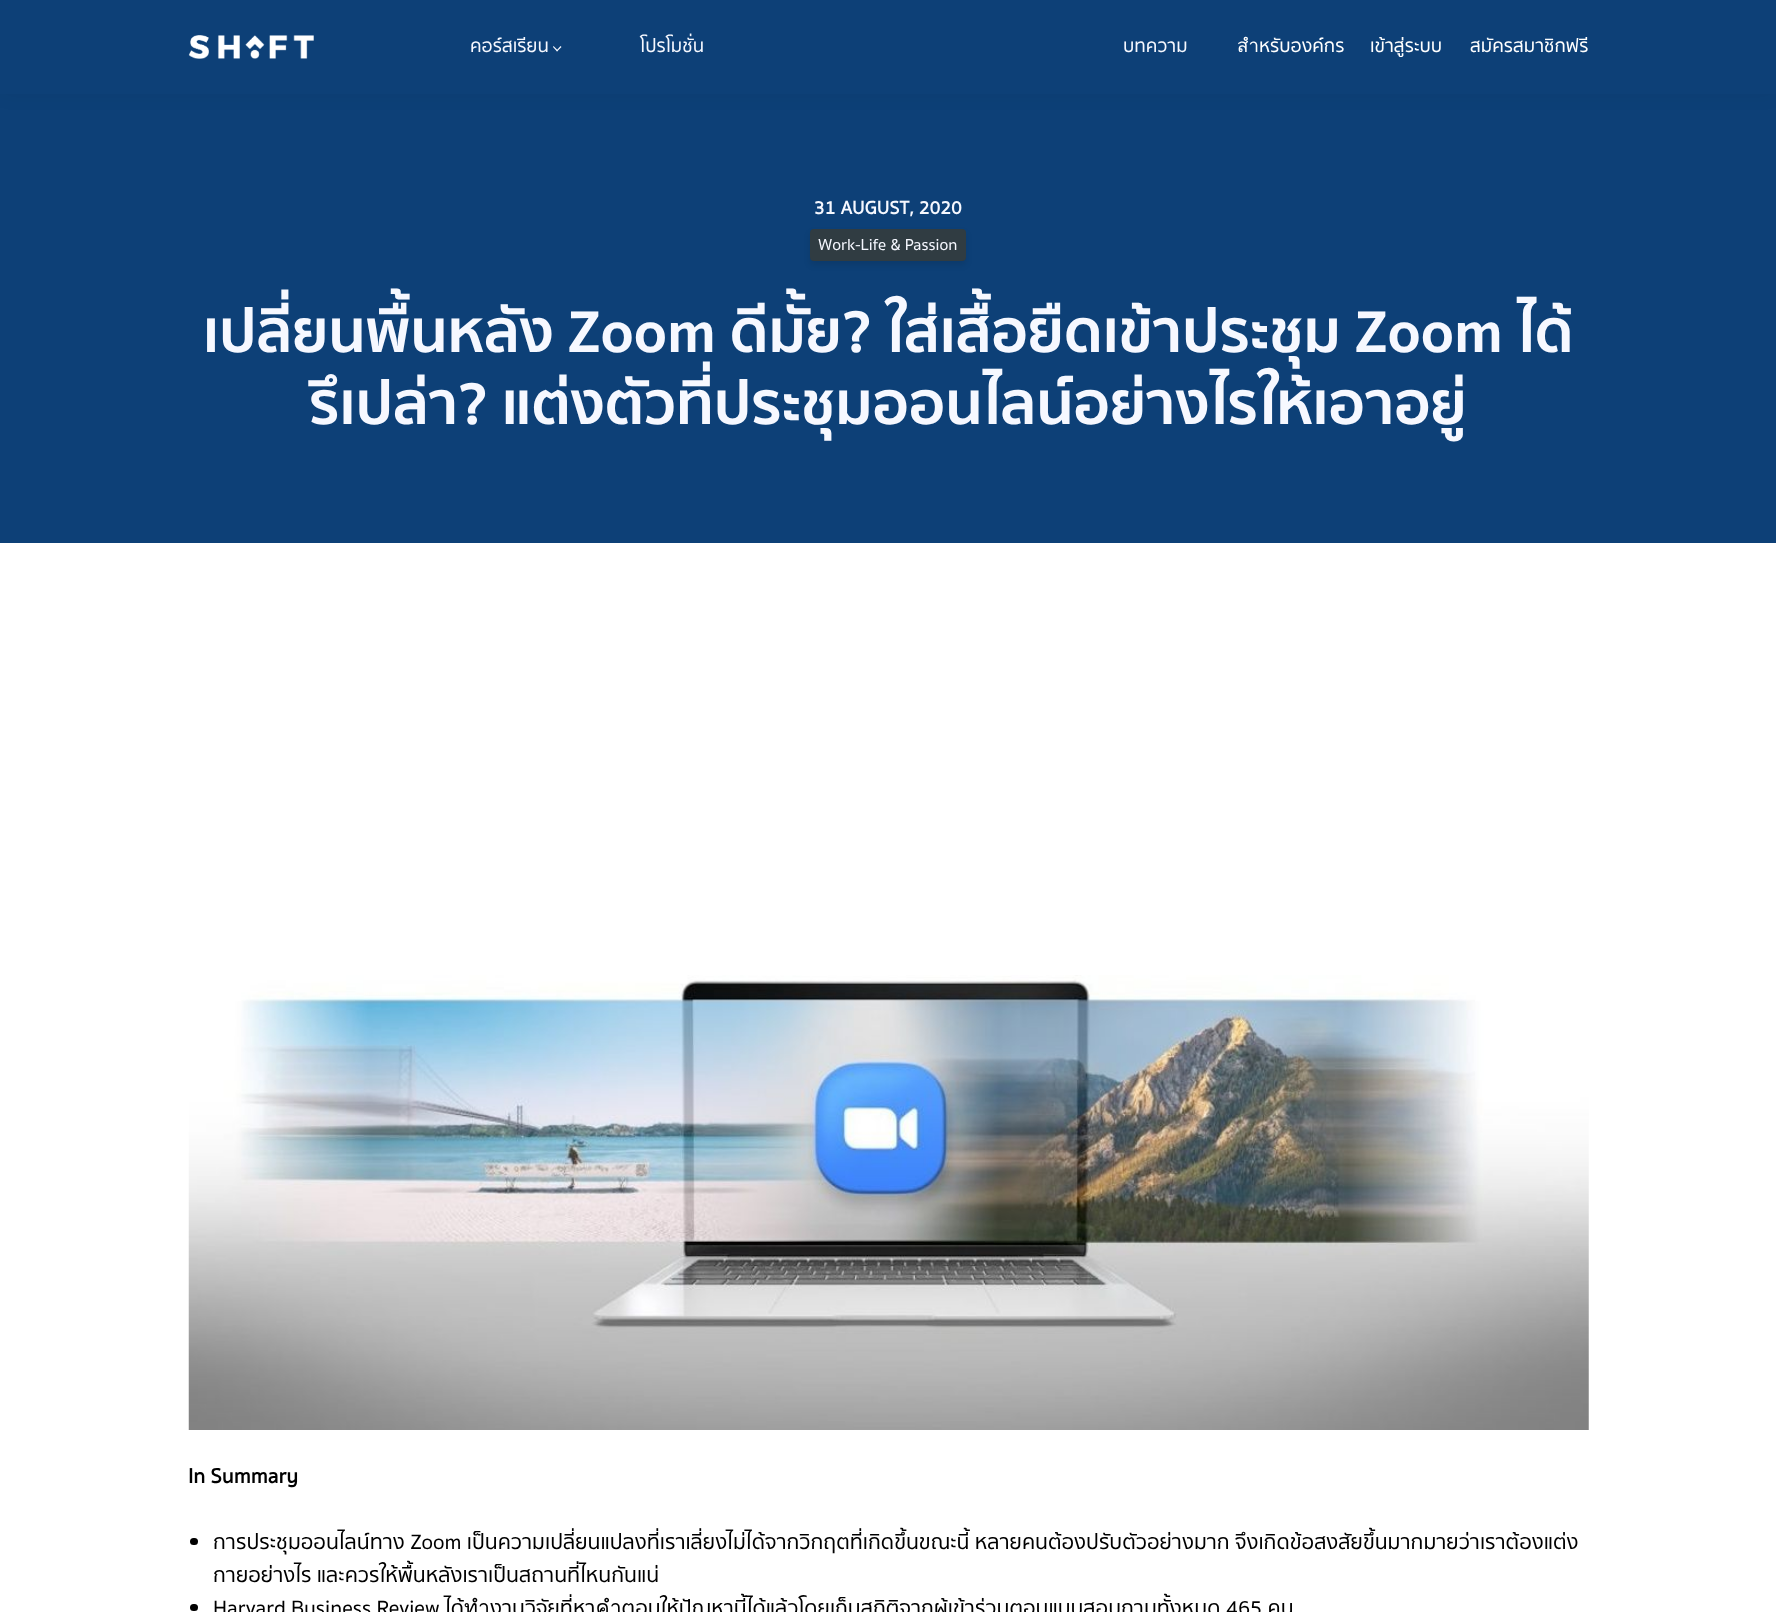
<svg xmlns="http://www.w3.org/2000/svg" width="1776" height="1612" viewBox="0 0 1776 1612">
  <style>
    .t1 { font: 500 18.75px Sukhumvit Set; fill: #f6f8ff; }
    .t2 { font: 500 18.75px Sukhumvit Set; fill: #fff; }
    .t3 { font: bold 18.75px Sukhumvit Set; letter-spacing: 0.1px; fill: #f6f8ff; }
    .t4 { font: 500 16.25px Sukhumvit Set; fill: #f6f8ff; }
    .t5 { font: bold 60px 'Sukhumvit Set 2'; fill: #f6f8ff; }
    .t6 { font: bold 21.25px Sukhumvit Set; fill: #000; }
    .t7 { font: 500 21.25px Sukhumvit Set; fill: #000; }
  </style>
  <rect width="100%" height="100%" fill="#fff"/>
  <rect x="0" y="94" width="1776" height="449" fill="#0d4077"/>
  <rect x="0" y="0" width="1776" height="94" fill="#0000000d" filter="blur(9.5px)"/>
  <rect x="0" y="0" width="1776" height="94" fill="#0d4077"/>
  <image x="188" y="35" width="126" height="24" href="images/1.png"/>
  <text x="470" y="52" class="t1">คอร์สเรียน</text>
  <path d="M561.5 47L557 51.5L556.5 50.5L560.5 46Z" fill="#f6f8ff"/>
  <path d="M558 50.5L557 51.5L553 47L553.5 46Z" fill="#f6f8ff"/>
  <text x="640" y="52" class="t1">โปรโมชั่น</text>
  <text x="1123" y="52" class="t1">บทความ</text>
  <text x="1237" y="52" class="t2">สำหรับองค์กร</text>
  <text x="1370" y="52" class="t2">เข้าสู่ระบบ</text>
  <text x="1470" y="52" class="t2">สมัครสมาชิกฟรี</text>
  <text x="814" y="214" class="t3">31 AUGUST, 2020</text>
  <rect x="810" y="233" width="156" height="32" rx="4" fill="#0000001a" filter="blur(3px)"/>
  <rect x="810" y="229" width="156" height="32" rx="4" fill="#303c42"/>
  <text x="818" y="250" class="t4">Work-Life &amp; Passion</text>
  <text x="203" y="352" class="t5">เปลี่ยนพื้นหลัง Zoom ดีมั้ย? ใส่เสื้อยืดเข้าประชุม Zoom ได้</text>
  <text x="309" y="424" class="t5">รึเปล่า? แต่งตัวที่ประชุมออนไลน์อย่างไรให้เอาอยู่</text>
  <image x="188" y="975" width="1401" height="455" href="images/2.png"/>
  <text x="188" y="1483" class="t6">In Summary</text>
  <rect x="190" y="1538" width="8" height="7" rx="3.5" fill="#000"/>
  <text x="213" y="1549" class="t7">การประชุมออนไลน์ทาง Zoom เป็นความเปลี่ยนแปลงที่เราเลี่ยงไม่ได้จากวิกฤตที่เกิดขึ้นขณะนี้ หลายคนต้องปรับตัวอย่างมาก จึงเกิดข้อสงสัยขึ้นมากมายว่าเราต้องแต่ง</text>
  <text x="213" y="1582" class="t7">กายอย่างไร และควรให้พื้นหลังเราเป็นสถานที่ไหนกันแน่</text>
  <rect x="190" y="1604" width="8" height="7" rx="3.5" fill="#000"/>
  <text x="213" y="1615" class="t7">Harvard Business Review ได้ทำงานวิจัยที่หาคำตอบให้ปัญหานี้ได้แล้วโดยเก็บสถิติจากผู้เข้าร่วมตอบแบบสอบถามทั้งหมด 465 คน</text>
</svg>
